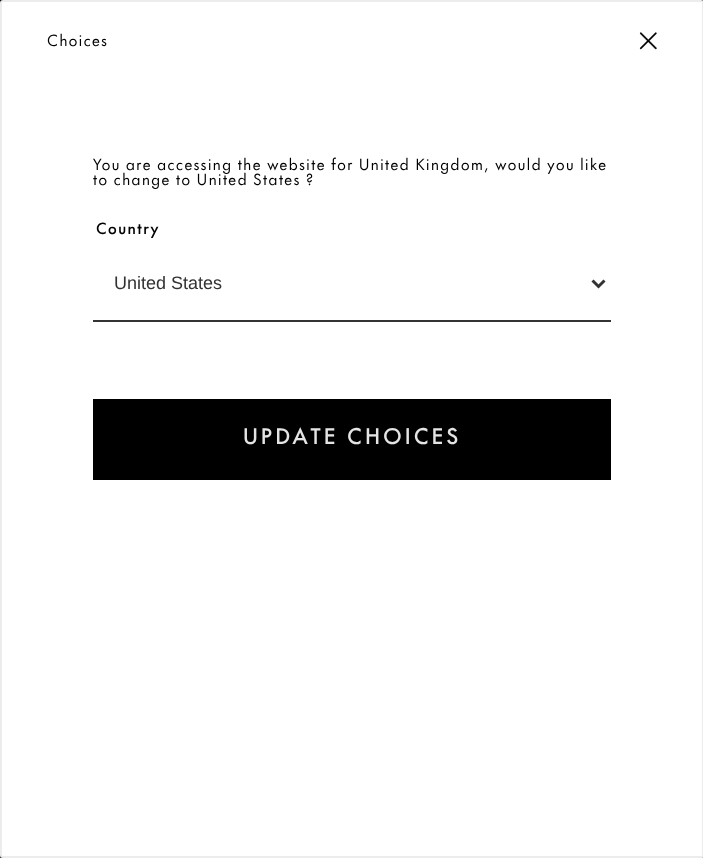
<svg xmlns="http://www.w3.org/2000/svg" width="703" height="858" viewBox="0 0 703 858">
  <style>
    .t1 { font: 15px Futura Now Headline; letter-spacing: 1.5px; fill: #000; }
    .t2 { font: 500 15px Futura Now Headline; letter-spacing: 1.5px; fill: #000; }
    .t3 { font: 18px Liberation Sans; fill: #333; }
    .t4 { font: 500 21px Futura Now Headline; letter-spacing: 3px; fill: #e4e4e4; }
  </style>
  <rect width="100%" height="100%" fill="#ababab"/>
  <rect x="0" y="0" width="703" height="3" fill="#000"/>
  <rect x="0" y="855" width="703" height="3" fill="#000000b3"/>
  <rect x="0" y="8" width="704" height="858" rx="3" fill="#00000021" filter="blur(8px)"/>
  <rect x="1" y="1" width="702" height="856" rx="2" fill="#fff" stroke="#ececec" stroke-width="2"/>
  <text x="47" y="46" class="t1">Choices</text>
  <image x="639" y="32" width="18" height="18" href="images/1.png"/>
  <text x="93" y="170" class="t1">You are accessing the website for United Kingdom, would you like</text>
  <text x="93" y="185" class="t1">to change to United States ?</text>
  <text x="96" y="234" class="t2">Country</text>
  <rect x="93" y="320" width="518" height="2" fill="#333"/>
  <path d="M592.5 280.5L598.5 286.5L604.5 280.5" fill="none" stroke="#333" stroke-width="3"/>
  <text x="114" y="289" class="t3">United States</text>
  <rect x="93" y="399" width="518" height="81" fill="#000"/>
  <text x="243" y="444" class="t4">UPDATE CHOICES</text>
</svg>
